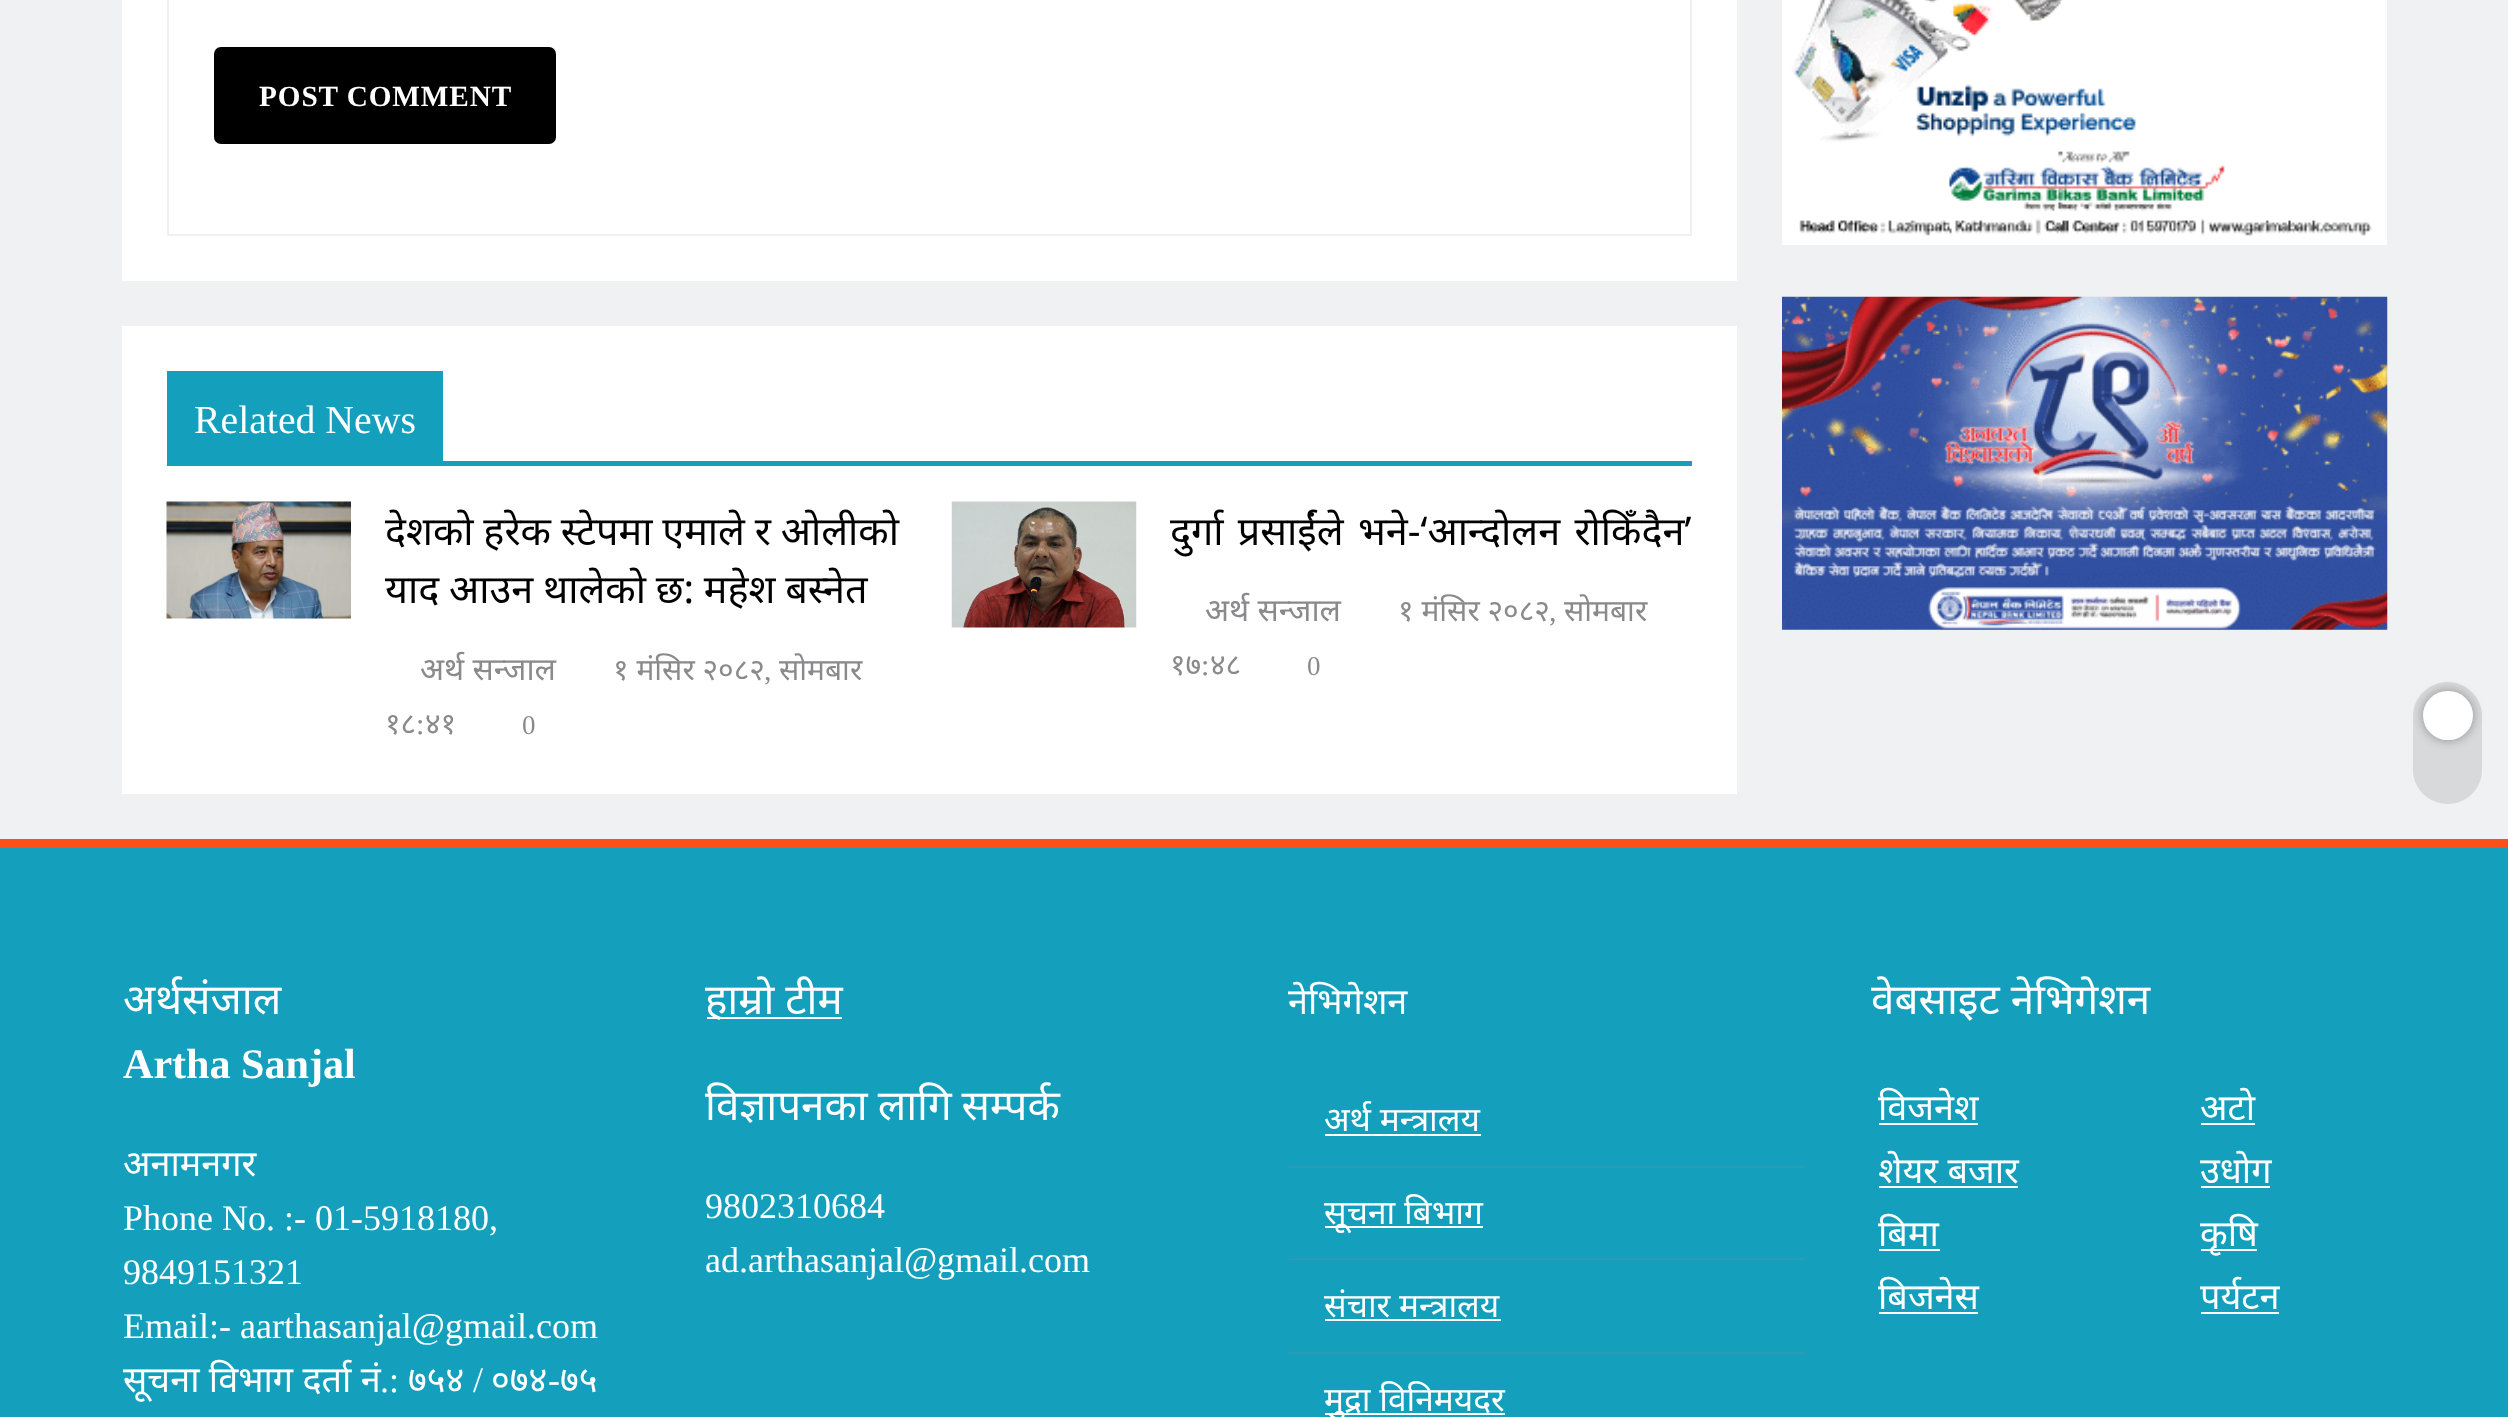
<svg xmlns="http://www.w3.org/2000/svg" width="2508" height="1417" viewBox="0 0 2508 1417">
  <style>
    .t1 { font: bold 29.25px Liberation Serif; letter-spacing: 0.9px; fill: #fff; }
    .t2 { font: 39.75px Liberation Serif; fill: #fff; }
    .t3 { font: 39.6px Noto Sans; fill: #000; }
    .t4 { font: 31.5px Noto Sans; fill: #8a8a8c; }
    .t5 { font: 30px Noto Sans; fill: #8a8a8c; }
    .t6 { font: 30px Liberation Serif; fill: #8a8a8c; }
    .t7 { font: 27px Liberation Serif; fill: #8a8a8c; }
    .t8 { font: 42.1px Noto Sans; fill: #fff; }
    .t9 { font: bold 42.1px Liberation Serif; fill: #fff; }
    .t10 { font: 36px Noto Sans; fill: #fff; }
    .t11 { font: 36px Liberation Serif; fill: #fff; }
    .t12 { font: 33.5px Noto Sans; fill: #fff; }
  </style>
  <rect width="100%" height="100%" fill="#f0f1f2"/>
  <rect x="122" y="0" width="1615" height="281" fill="#fff"/>
  <rect x="168" y="-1" width="1523" height="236" fill="none" stroke="#f0f0f0" stroke-width="2"/>
  <rect x="214" y="47" width="342" height="97" rx="7" fill="#000"/>
  <text x="259" y="106" class="t1">POST COMMENT</text>
  <rect x="122" y="326" width="1615" height="468" fill="#fff"/>
  <rect x="443" y="461" width="1249" height="5" fill="#149fbc"/>
  <rect x="167" y="371" width="276" height="95" fill="#149fbc"/>
  <text x="194" y="433" class="t2">Related News</text>
  <image x="166" y="501" width="185" height="118" href="images/1.png"/>
  <text x="385" y="545" word-spacing="-0.5" class="t3">देशको हरेक स्टेपमा एमाले र ओलीको</text>
  <text x="385" y="603" word-spacing="-0.5" class="t3">याद आउन थालेको छ: महेश बस्नेत</text>
  <text x="420" y="680" class="t4">अर्थ सन्जाल</text>
  <text x="613" y="680" class="t5">१ मंसिर २०८२</text>
  <text x="764" y="680" class="t6">,</text>
  <text x="779" y="680" class="t5">सोमबार</text>
  <text x="385" y="734" class="t5">१८</text>
  <text x="416" y="734" class="t6">:</text>
  <text x="425" y="734" class="t5">४१</text>
  <text x="522" y="734" class="t7">0</text>
  <image x="951" y="501" width="186" height="127" href="images/2.png"/>
  <text x="1170" y="545" word-spacing="4" class="t3">दुर्गा प्रसाईंले भने-‘आन्दोलन रोकिँदैन’</text>
  <text x="1205" y="621" class="t4">अर्थ सन्जाल</text>
  <text x="1398" y="621" class="t5">१ मंसिर २०८२</text>
  <text x="1549" y="621" class="t6">,</text>
  <text x="1564" y="621" class="t5">सोमबार</text>
  <text x="1170" y="675" class="t5">१७</text>
  <text x="1201" y="675" class="t6">:</text>
  <text x="1210" y="675" class="t5">४८</text>
  <text x="1307" y="675" class="t7">0</text>
  <image x="1782" y="0" width="605" height="245" href="images/3.png"/>
  <image x="1782" y="296" width="606" height="334" href="images/4.png"/>
  <path d="M2482 716V770C2482 789 2466 804 2448 804C2429 804 2413 789 2413 770V716C2413 697 2429 682 2448 682C2466 682 2482 697 2482 716Z" fill="#d8d9da"/>
  <rect x="2423" y="691" width="50" height="49" rx="24.5" fill="#00000059" filter="blur(5.5px)"/>
  <rect x="2423" y="691" width="50" height="49" rx="24.5" fill="#fff"/>
  <rect x="0" y="839" width="2508" height="9" fill="#fd4f18"/>
  <rect x="0" y="848" width="2508" height="569" fill="#149fbc"/>
  <text x="123" y="1014" class="t8">अर्थसंजाल</text>
  <text x="123" y="1078" class="t9">Artha Sanjal</text>
  <text x="123" y="1176" class="t10">अनामनगर</text>
  <text x="123" y="1230" class="t11">Phone No. :- 01-5918180,</text>
  <text x="123" y="1284" class="t11">9849151321</text>
  <text x="123" y="1338" class="t11">Email:- aarthasanjal@gmail.com</text>
  <text x="123" y="1392" class="t10">सूचना विभाग दर्ता नं</text>
  <text x="380" y="1392" class="t11">.:</text>
  <text x="408" y="1392" class="t10">७५४</text>
  <text x="473" y="1392" class="t11">/</text>
  <text x="491" y="1392" class="t10">०७४</text>
  <text x="548" y="1392" class="t11">-</text>
  <text x="560" y="1392" class="t10">७५</text>
  <rect x="707" y="1017" width="135" height="2" fill="#fff"/>
  <text x="705" y="1014" class="t8">हाम्रो टीम</text>
  <text x="705" y="1120" word-spacing="-1" class="t8">विज्ञापनका लागि सम्पर्क</text>
  <text x="705" y="1218" class="t11">9802310684</text>
  <text x="705" y="1272" class="t11">ad.arthasanjal@gmail.com</text>
  <text x="1288" y="1014" class="t10">नेभिगेशन</text>
  <rect x="1289" y="1166" width="516" height="2" fill="#299bb3"/>
  <text x="1324" y="1131" class="t12">अर्थ मन्त्रालय</text>
  <rect x="1325" y="1134" width="156" height="2" fill="#fff"/>
  <rect x="1289" y="1258" width="516" height="2" fill="#299bb3"/>
  <rect x="1325" y="1226" width="158" height="2" fill="#fff"/>
  <text x="1324" y="1224" class="t12">सूचना बिभाग</text>
  <rect x="1289" y="1352" width="516" height="2" fill="#299bb3"/>
  <text x="1324" y="1317" class="t12">संचार मन्त्रालय</text>
  <rect x="1325" y="1319" width="176" height="2" fill="#fff"/>
  <rect x="1325" y="1413" width="180" height="2" fill="#fff"/>
  <text x="1324" y="1411" class="t12">मुद्रा विनिमयदर</text>
  <text x="1871" y="1014" class="t8">वेबसाइट नेभिगेशन</text>
  <text x="1878" y="1120" class="t10">विजनेश</text>
  <rect x="1879" y="1123" width="99" height="2" fill="#fff"/>
  <text x="2200" y="1120" class="t10">अटाे</text>
  <rect x="2201" y="1123" width="54" height="2" fill="#fff"/>
  <text x="1878" y="1183" class="t10">शेयर बजार</text>
  <rect x="1879" y="1186" width="139" height="2" fill="#fff"/>
  <text x="2200" y="1183" class="t10">उधोग</text>
  <rect x="2201" y="1186" width="69" height="2" fill="#fff"/>
  <text x="1878" y="1246" class="t10">बिमा</text>
  <rect x="1879" y="1249" width="61" height="2" fill="#fff"/>
  <rect x="2201" y="1249" width="56" height="2" fill="#fff"/>
  <text x="2200" y="1246" class="t10">कृषि</text>
  <text x="1878" y="1309" class="t10">बिजनेस</text>
  <rect x="1879" y="1312" width="99" height="2" fill="#fff"/>
  <text x="2200" y="1309" class="t10">पर्यटन</text>
  <rect x="2201" y="1312" width="78" height="2" fill="#fff"/>
</svg>
